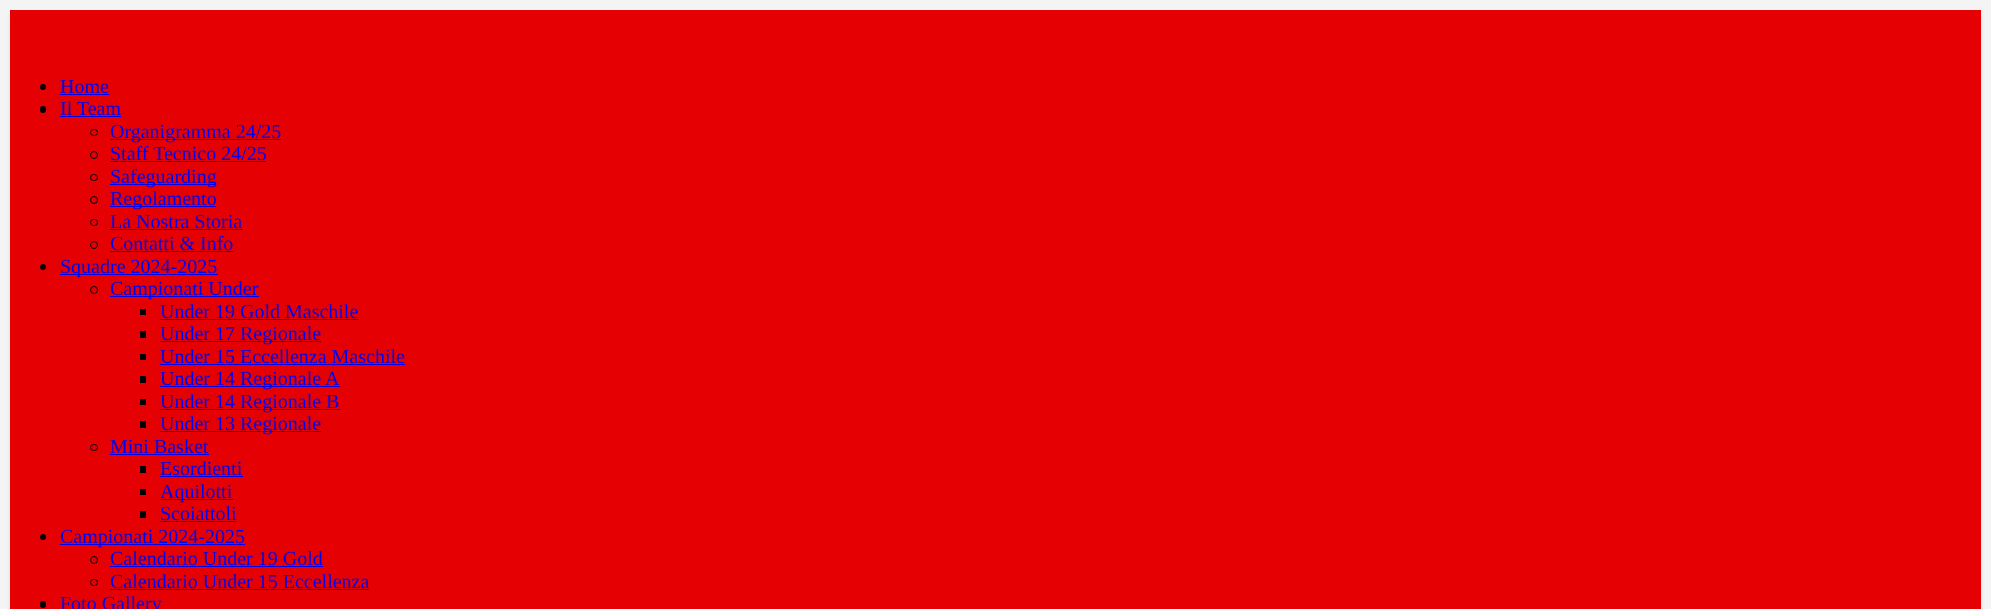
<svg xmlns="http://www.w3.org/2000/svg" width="1991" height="609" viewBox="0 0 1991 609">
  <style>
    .t1 { font: 20px Liberation Serif; fill: #00e; }
  </style>
  <rect width="100%" height="100%" fill="#f4f4f4"/>
  <rect x="10" y="14" width="1971" height="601" fill="#00000014" filter="blur(2px)"/>
  <rect x="10" y="10" width="1971" height="599" fill="#e50003"/>
  <circle cx="43" cy="87" r="3" fill="#000"/>
  <text x="60" y="93" class="t1">Home</text>
  <rect x="60" y="94" width="49" height="1" fill="#00e"/>
  <rect x="40" y="106" width="6" height="7" rx="3" fill="#000"/>
  <text x="60" y="115" class="t1">Il Team</text>
  <rect x="60" y="116" width="61" height="1" fill="#00e"/>
  <rect x="90.5" y="129.5" width="7" height="6" rx="3" fill="none" stroke="#000"/>
  <rect x="110" y="139" width="171" height="1" fill="#00e"/>
  <text x="110" y="138" class="t1">Organigramma 24/25</text>
  <circle cx="94" cy="155" r="3.5" fill="none" stroke="#000"/>
  <text x="110" y="160" class="t1">Staff Tecnico 24/25</text>
  <rect x="110" y="161" width="156" height="1" fill="#00e"/>
  <rect x="90.5" y="174.5" width="7" height="6" rx="3" fill="none" stroke="#000"/>
  <rect x="110" y="184" width="106" height="1" fill="#00e"/>
  <text x="110" y="183" class="t1">Safeguarding</text>
  <circle cx="94" cy="200" r="3.5" fill="none" stroke="#000"/>
  <rect x="110" y="206" width="106" height="1" fill="#00e"/>
  <text x="110" y="205" class="t1">Regolamento</text>
  <rect x="90.5" y="219.5" width="7" height="6" rx="3" fill="none" stroke="#000"/>
  <text x="110" y="228" class="t1">La Nostra Storia</text>
  <rect x="110" y="229" width="133" height="1" fill="#00e"/>
  <circle cx="94" cy="245" r="3.5" fill="none" stroke="#000"/>
  <text x="110" y="250" class="t1">Contatti &amp; Info</text>
  <rect x="110" y="251" width="124" height="1" fill="#00e"/>
  <circle cx="43" cy="267" r="3" fill="#000"/>
  <rect x="60" y="274" width="158" height="1" fill="#00e"/>
  <text x="60" y="273" class="t1">Squadre 2024-2025</text>
  <circle cx="94" cy="290" r="3.5" fill="none" stroke="#000"/>
  <rect x="110" y="296" width="149" height="1" fill="#00e"/>
  <text x="110" y="295" class="t1">Campionati Under</text>
  <rect x="140" y="309" width="6" height="6" fill="#000"/>
  <text x="160" y="318" class="t1">Under 19 Gold Maschile</text>
  <rect x="160" y="319" width="199" height="1" fill="#00e"/>
  <rect x="140" y="331" width="6" height="7" fill="#000"/>
  <rect x="160" y="341" width="161" height="1" fill="#00e"/>
  <text x="160" y="340" class="t1">Under 17 Regionale</text>
  <rect x="140" y="354" width="6" height="6" fill="#000"/>
  <text x="160" y="363" class="t1">Under 15 Eccellenza Maschile</text>
  <rect x="160" y="364" width="245" height="1" fill="#00e"/>
  <rect x="140" y="376" width="6" height="7" fill="#000"/>
  <rect x="160" y="386" width="180" height="1" fill="#00e"/>
  <text x="160" y="385" class="t1">Under 14 Regionale A</text>
  <rect x="140" y="399" width="6" height="6" fill="#000"/>
  <rect x="160" y="409" width="180" height="1" fill="#00e"/>
  <text x="160" y="408" class="t1">Under 14 Regionale B</text>
  <rect x="140" y="421" width="6" height="7" fill="#000"/>
  <rect x="160" y="431" width="161" height="1" fill="#00e"/>
  <text x="160" y="430" class="t1">Under 13 Regionale</text>
  <rect x="90.5" y="444.5" width="7" height="6" rx="3" fill="none" stroke="#000"/>
  <text x="110" y="453" class="t1">Mini Basket</text>
  <rect x="110" y="454" width="99" height="1" fill="#00e"/>
  <rect x="140" y="466" width="6" height="7" fill="#000"/>
  <text x="160" y="475" class="t1">Esordienti</text>
  <rect x="160" y="476" width="83" height="1" fill="#00e"/>
  <rect x="140" y="489" width="6" height="6" fill="#000"/>
  <rect x="160" y="499" width="73" height="1" fill="#00e"/>
  <text x="160" y="498" class="t1">Aquilotti</text>
  <rect x="140" y="511" width="6" height="7" fill="#000"/>
  <text x="160" y="520" class="t1">Scoiattoli</text>
  <rect x="160" y="521" width="76" height="1" fill="#00e"/>
  <circle cx="43" cy="537" r="3" fill="#000"/>
  <rect x="60" y="544" width="185" height="1" fill="#00e"/>
  <text x="60" y="543" class="t1">Campionati 2024-2025</text>
  <circle cx="94" cy="560" r="3.5" fill="none" stroke="#000"/>
  <text x="110" y="565" class="t1">Calendario Under 19 Gold</text>
  <rect x="110" y="566" width="213" height="1" fill="#00e"/>
  <rect x="90.5" y="579.5" width="7" height="6" rx="3" fill="none" stroke="#000"/>
  <text x="110" y="588" class="t1">Calendario Under 15 Eccellenza</text>
  <rect x="110" y="589" width="259" height="1" fill="#00e"/>
  <rect x="40" y="601" width="6" height="7" rx="3" fill="#000"/>
  <text x="60" y="610" class="t1">Foto Gallery</text>
</svg>
